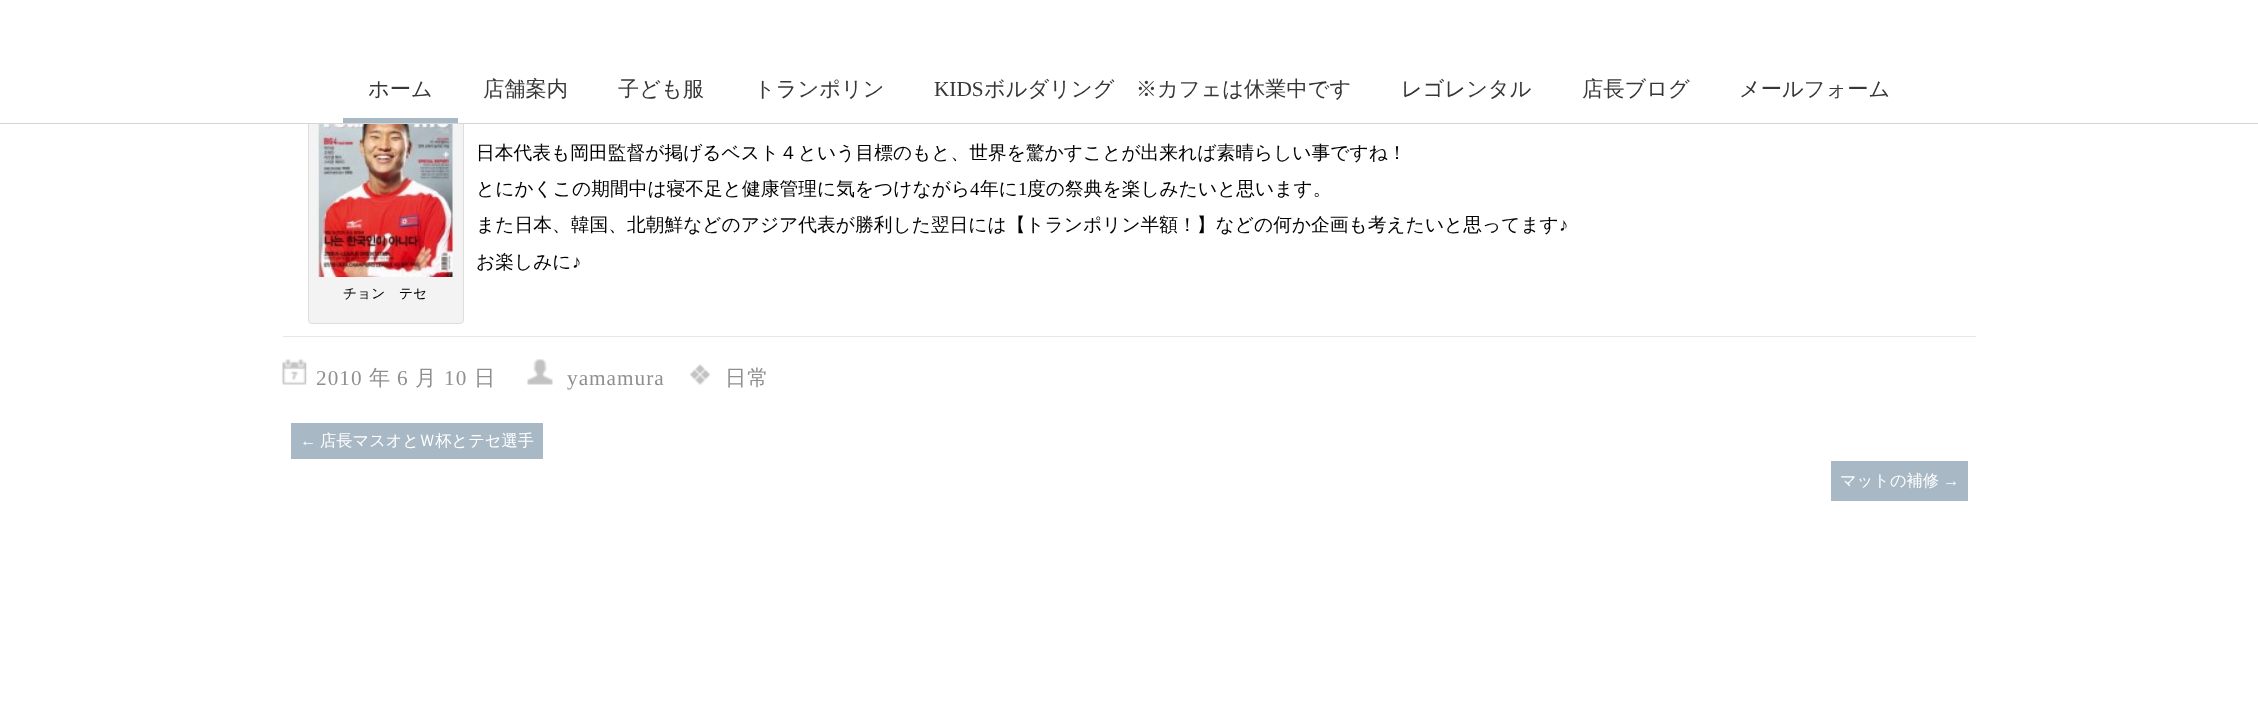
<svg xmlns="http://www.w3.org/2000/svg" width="2258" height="709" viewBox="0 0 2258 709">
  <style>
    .t1 { font: 500 21.25px WenQuanYi Zen Hei; fill: #373737; }
    .t2 { font: 21.25px Liberation Serif; fill: #373737; }
    .t3 { font: 500 18.75px WenQuanYi Zen Hei; fill: #000; }
    .t4 { font: 18.75px Liberation Serif; fill: #000; }
    .t5 { font: 500 13.75px WenQuanYi Zen Hei; fill: #000; }
    .t6 { font: 21.25px Liberation Serif; letter-spacing: 1px; fill: #8f8f8f; }
    .t7 { font: 500 21.25px WenQuanYi Zen Hei; letter-spacing: 1px; fill: #8f8f8f; }
    .t8 { font: 16.25px Liberation Serif; fill: #fff; }
    .t9 { font: 500 16.25px WenQuanYi Zen Hei; fill: #fff; }
  </style>
  <rect width="100%" height="100%" fill="#fff"/>
  <rect x="308.5" y="84.5" width="155" height="239" rx="3.5" fill="#f3f3f3" stroke="#ddd"/>
  <rect x="308" y="84" width="156" height="39" fill="#fff"/>
  <rect x="0" y="123" width="2258" height="1" fill="#d5d5d5"/>
  <text x="368" y="96" class="t1">ホーム</text>
  <text x="483" y="96" class="t1">店舗案内</text>
  <text x="618" y="96" class="t1">子ども服</text>
  <text x="754" y="96" class="t1">トランポリン</text>
  <text x="934" y="96" class="t2">KIDS</text>
  <text x="984" y="96" class="t1">ボルダリング　※カフェは休業中です</text>
  <text x="1401" y="96" class="t1">レゴレンタル</text>
  <text x="1582" y="96" class="t1">店長ブログ</text>
  <text x="1739" y="96" class="t1">メールフォーム</text>
  <rect x="343" y="118" width="115" height="5" fill="#a8b8c5"/>
  <text x="476" y="159" class="t3">日本代表も岡田監督が掲げるベスト４という目標のもと、世界を驚かすことが出来れば素晴らしい事ですね！</text>
  <text x="476" y="195" class="t3">とにかくこの期間中は寝不足と健康管理に気をつけながら</text>
  <text x="970" y="195" class="t4">4</text>
  <text x="980" y="195" class="t3">年に</text>
  <text x="1018" y="195" class="t4">1</text>
  <text x="1027" y="195" class="t3">度の祭典を楽しみたいと思います。</text>
  <text x="476" y="231" class="t3">また日本、韓国、北朝鮮などのアジア代表が勝利した翌日には【トランポリン半額！】などの何か企画も考えたいと思ってます</text>
  <text x="1559" y="231" class="t4">♪</text>
  <text x="476" y="268" class="t3">お楽しみに</text>
  <text x="572" y="268" class="t4">♪</text>
  <image x="318" y="124" width="135" height="153" href="images/1.png"/>
  <text x="343" y="298" class="t5">チョン　テセ</text>
  <rect x="283" y="336" width="1693" height="1" fill="#e7e7e7"/>
  <image x="282" y="359" width="25" height="26" href="images/2.png"/>
  <text x="316" y="385" class="t6">2010</text>
  <text x="369" y="385" class="t7">年</text>
  <text x="397" y="385" class="t6">6</text>
  <text x="415" y="385" class="t7">月</text>
  <text x="444" y="385" class="t6">10</text>
  <text x="474" y="385" class="t7">日</text>
  <image x="527" y="359" width="26" height="26" href="images/3.png"/>
  <text x="567" y="385" class="t6">yamamura</text>
  <image x="690" y="364" width="20" height="21" href="images/4.png"/>
  <text x="725" y="385" class="t7">日常</text>
  <rect x="291" y="423" width="252" height="36" fill="#a8b8c5"/>
  <text x="300" y="446" class="t8">←</text>
  <text x="320" y="446" class="t9">店長マスオとＷ杯とテセ選手</text>
  <rect x="1831" y="461" width="137" height="40" fill="#a8b8c5"/>
  <text x="1840" y="486" class="t9">マットの補修</text>
  <text x="1943" y="486" class="t8">→</text>
</svg>
